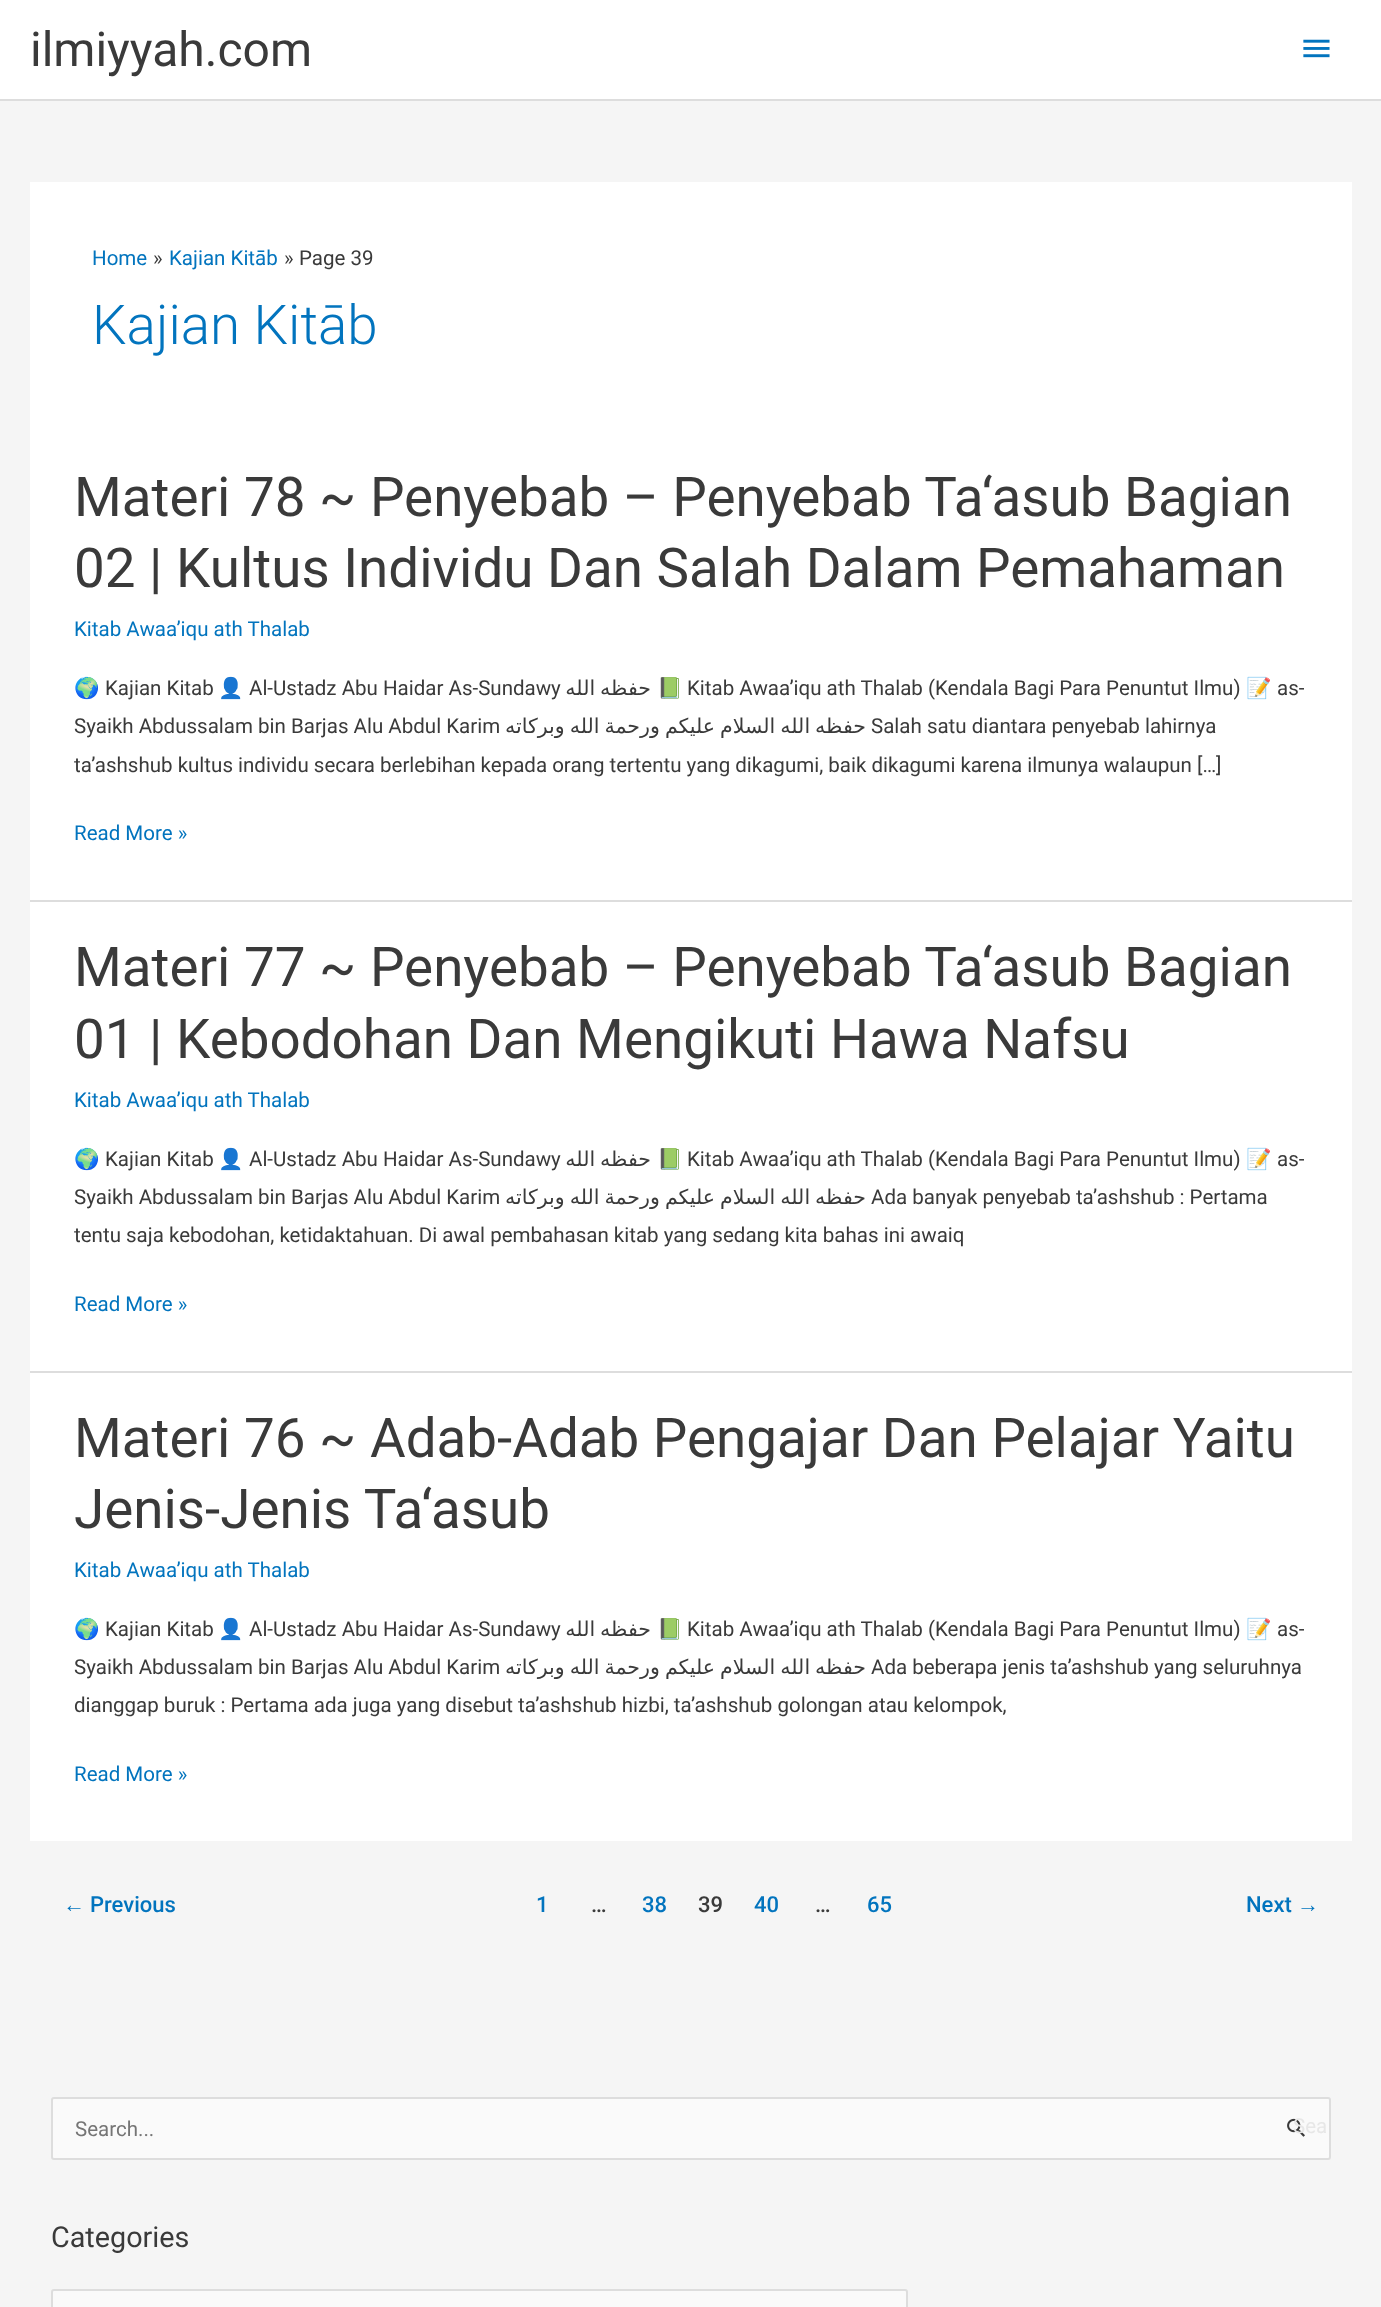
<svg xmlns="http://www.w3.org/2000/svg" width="1381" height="2307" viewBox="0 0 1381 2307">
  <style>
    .t1 { font: 48px Roboto; fill: #3a3a3a; }
    .t2 { font: 20.52px Roboto; fill: #0274be; }
    .t3 { font: 20.52px Roboto; fill: #3a3a3a; }
    .t4 { font: 300 54.75px Roboto; fill: #0274be; }
    .t5 { font: 54.75px Roboto; fill: #3a3a3a; }
    .t6 { font: 20.52px Noto Color Emoji; fill: #3a3a3a; }
    .t7 { font: 20.52px DejaVu Sans; direction: rtl; fill: #3a3a3a; }
    .t8 { font: 22px Liberation Sans; fill: #0274be; }
    .t9 { font: 500 22px Roboto; fill: #0274be; }
    .t10 { font: 500 22px Roboto; fill: #3a3a3a; }
    .t11 { font: 20.52px Roboto; fill: #757575; }
    .t12 { font: 20.52px Roboto; fill: #e7e7e7; }
    .t13 { font: 28.75px Roboto; fill: #3a3a3a; }
  </style>
  <defs>
    <clipPath id="clip1"><rect x="74" y="462" width="1234" height="408"/></clipPath>
    <clipPath id="clip2"><rect x="74" y="933" width="1234" height="407"/></clipPath>
    <clipPath id="clip3"><rect x="74" y="1403" width="1234" height="408"/></clipPath>
  </defs>
  <rect width="100%" height="100%" fill="#f5f5f5"/>
  <rect x="0" y="0" width="1381" height="99" fill="#fff"/>
  <rect x="0" y="99" width="1381" height="2" fill="#ddd"/>
  <text x="30" y="66" class="t1">ilmiyyah.com</text>
  <image x="1303" y="39" width="27" height="19" href="images/1.png"/>
  <rect x="30" y="182" width="1322" height="718" fill="#fff"/>
  <text x="92" y="265" class="t2">Home</text>
  <text x="153" y="265" class="t3">»</text>
  <text x="169" y="265" class="t2">Kajian Kitāb</text>
  <text x="284" y="265" class="t3">»</text>
  <text x="299" y="265" class="t3">Page 39</text>
  <text x="92" y="344" class="t4">Kajian Kitāb</text>
  <rect x="30" y="900" width="1322" height="2" fill="#ddd"/>
  <text x="74" y="516" class="t5">Materi 78 ~ Penyebab – Penyebab Ta‘asub Bagian</text>
  <text x="74" y="587" class="t5">02 | Kultus Individu Dan Salah Dalam Pemahaman</text>
  <text x="74" y="636" class="t2">Kitab Awaa’iqu ath Thalab</text>
  <g clip-path="url(#clip1)">
    <text x="74" y="695" class="t6">🌍</text>
  </g>
  <text x="105" y="695" class="t3">Kajian Kitab</text>
  <text x="218" y="695" class="t6">👤</text>
  <text x="249" y="695" class="t3">Al-Ustadz Abu Haidar As-Sundawy</text>
  <text x="651" y="695" word-spacing="-1.5" class="t7">حفظه الله</text>
  <text x="657" y="695" class="t6">📗</text>
  <text x="687" y="695" class="t3">Kitab Awaa’iqu ath Thalab (Kendala Bagi Para Penuntut Ilmu)</text>
  <text x="1246" y="695" class="t6">📝</text>
  <text x="1277" y="695" class="t3">as-</text>
  <text x="74" y="733" class="t3">Syaikh Abdussalam bin Barjas Alu Abdul Karim</text>
  <text x="866" y="733" word-spacing="-1.5" class="t7">حفظه الله السلام عليكم ورحمة الله وبركاته</text>
  <text x="871" y="733" class="t3">Salah satu diantara penyebab lahirnya</text>
  <text x="74" y="772" class="t3">ta’ashshub kultus individu secara berlebihan kepada orang tertentu yang dikagumi, baik dikagumi karena ilmunya walaupun […]</text>
  <text x="74" y="840" class="t2">Read More »</text>
  <rect x="30" y="902" width="1322" height="469" fill="#fff"/>
  <rect x="30" y="1371" width="1322" height="2" fill="#ddd"/>
  <text x="74" y="986" class="t5">Materi 77 ~ Penyebab – Penyebab Ta‘asub Bagian</text>
  <text x="74" y="1058" class="t5">01 | Kebodohan Dan Mengikuti Hawa Nafsu</text>
  <text x="74" y="1107" class="t2">Kitab Awaa’iqu ath Thalab</text>
  <g clip-path="url(#clip2)">
    <text x="74" y="1166" class="t6">🌍</text>
  </g>
  <text x="105" y="1166" class="t3">Kajian Kitab</text>
  <text x="218" y="1166" class="t6">👤</text>
  <text x="249" y="1166" class="t3">Al-Ustadz Abu Haidar As-Sundawy</text>
  <text x="651" y="1166" word-spacing="-1.5" class="t7">حفظه الله</text>
  <text x="657" y="1166" class="t6">📗</text>
  <text x="687" y="1166" class="t3">Kitab Awaa’iqu ath Thalab (Kendala Bagi Para Penuntut Ilmu)</text>
  <text x="1246" y="1166" class="t6">📝</text>
  <text x="1277" y="1166" class="t3">as-</text>
  <text x="74" y="1204" class="t3">Syaikh Abdussalam bin Barjas Alu Abdul Karim</text>
  <text x="866" y="1204" word-spacing="-1.5" class="t7">حفظه الله السلام عليكم ورحمة الله وبركاته</text>
  <text x="871" y="1204" class="t3">Ada banyak penyebab ta’ashshub : Pertama</text>
  <text x="74" y="1242" class="t3">tentu saja kebodohan, ketidaktahuan. Di awal pembahasan kitab yang sedang kita bahas ini awaiq</text>
  <text x="74" y="1311" class="t2">Read More »</text>
  <rect x="30" y="1373" width="1322" height="468" fill="#fff"/>
  <text x="74" y="1457" class="t5">Materi 76 ~ Adab-Adab Pengajar Dan Pelajar Yaitu</text>
  <text x="74" y="1528" class="t5">Jenis-Jenis Ta‘asub</text>
  <text x="74" y="1577" class="t2">Kitab Awaa’iqu ath Thalab</text>
  <g clip-path="url(#clip3)">
    <text x="74" y="1636" class="t6">🌍</text>
  </g>
  <text x="105" y="1636" class="t3">Kajian Kitab</text>
  <text x="218" y="1636" class="t6">👤</text>
  <text x="249" y="1636" class="t3">Al-Ustadz Abu Haidar As-Sundawy</text>
  <text x="651" y="1636" word-spacing="-1.5" class="t7">حفظه الله</text>
  <text x="657" y="1636" class="t6">📗</text>
  <text x="687" y="1636" class="t3">Kitab Awaa’iqu ath Thalab (Kendala Bagi Para Penuntut Ilmu)</text>
  <text x="1246" y="1636" class="t6">📝</text>
  <text x="1277" y="1636" class="t3">as-</text>
  <text x="74" y="1674" class="t3">Syaikh Abdussalam bin Barjas Alu Abdul Karim</text>
  <text x="866" y="1674" word-spacing="-1.5" class="t7">حفظه الله السلام عليكم ورحمة الله وبركاته</text>
  <text x="871" y="1674" class="t3">Ada beberapa jenis ta’ashshub yang seluruhnya</text>
  <text x="74" y="1712" class="t3">dianggap buruk : Pertama ada juga yang disebut ta’ashshub hizbi, ta’ashshub golongan atau kelompok,</text>
  <text x="74" y="1781" class="t2">Read More »</text>
  <text x="63" y="1912" class="t8">←</text>
  <text x="90" y="1912" class="t9">Previous</text>
  <text x="536" y="1912" class="t9">1</text>
  <text x="591" y="1912" class="t10">…</text>
  <text x="642" y="1912" class="t9">38</text>
  <text x="698" y="1912" class="t10">39</text>
  <text x="754" y="1912" class="t9">40</text>
  <text x="815" y="1912" class="t10">…</text>
  <text x="867" y="1912" class="t9">65</text>
  <text x="1246" y="1912" class="t9">Next</text>
  <text x="1297" y="1912" class="t8">→</text>
  <rect x="52" y="2098" width="1278" height="61" rx="2" fill="#fafafa" stroke="#ddd" stroke-width="2"/>
  <image x="1287" y="2118" width="18" height="19" href="images/2.png"/>
  <text x="75" y="2136" class="t11">Search...</text>
  <text x="1293" y="2133" class="t12">Sea</text>
  <text x="51" y="2247" class="t13">Categories</text>
  <rect x="52" y="2290" width="855" height="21" rx="2" fill="#fafafa" stroke="#ddd" stroke-width="2"/>
</svg>
